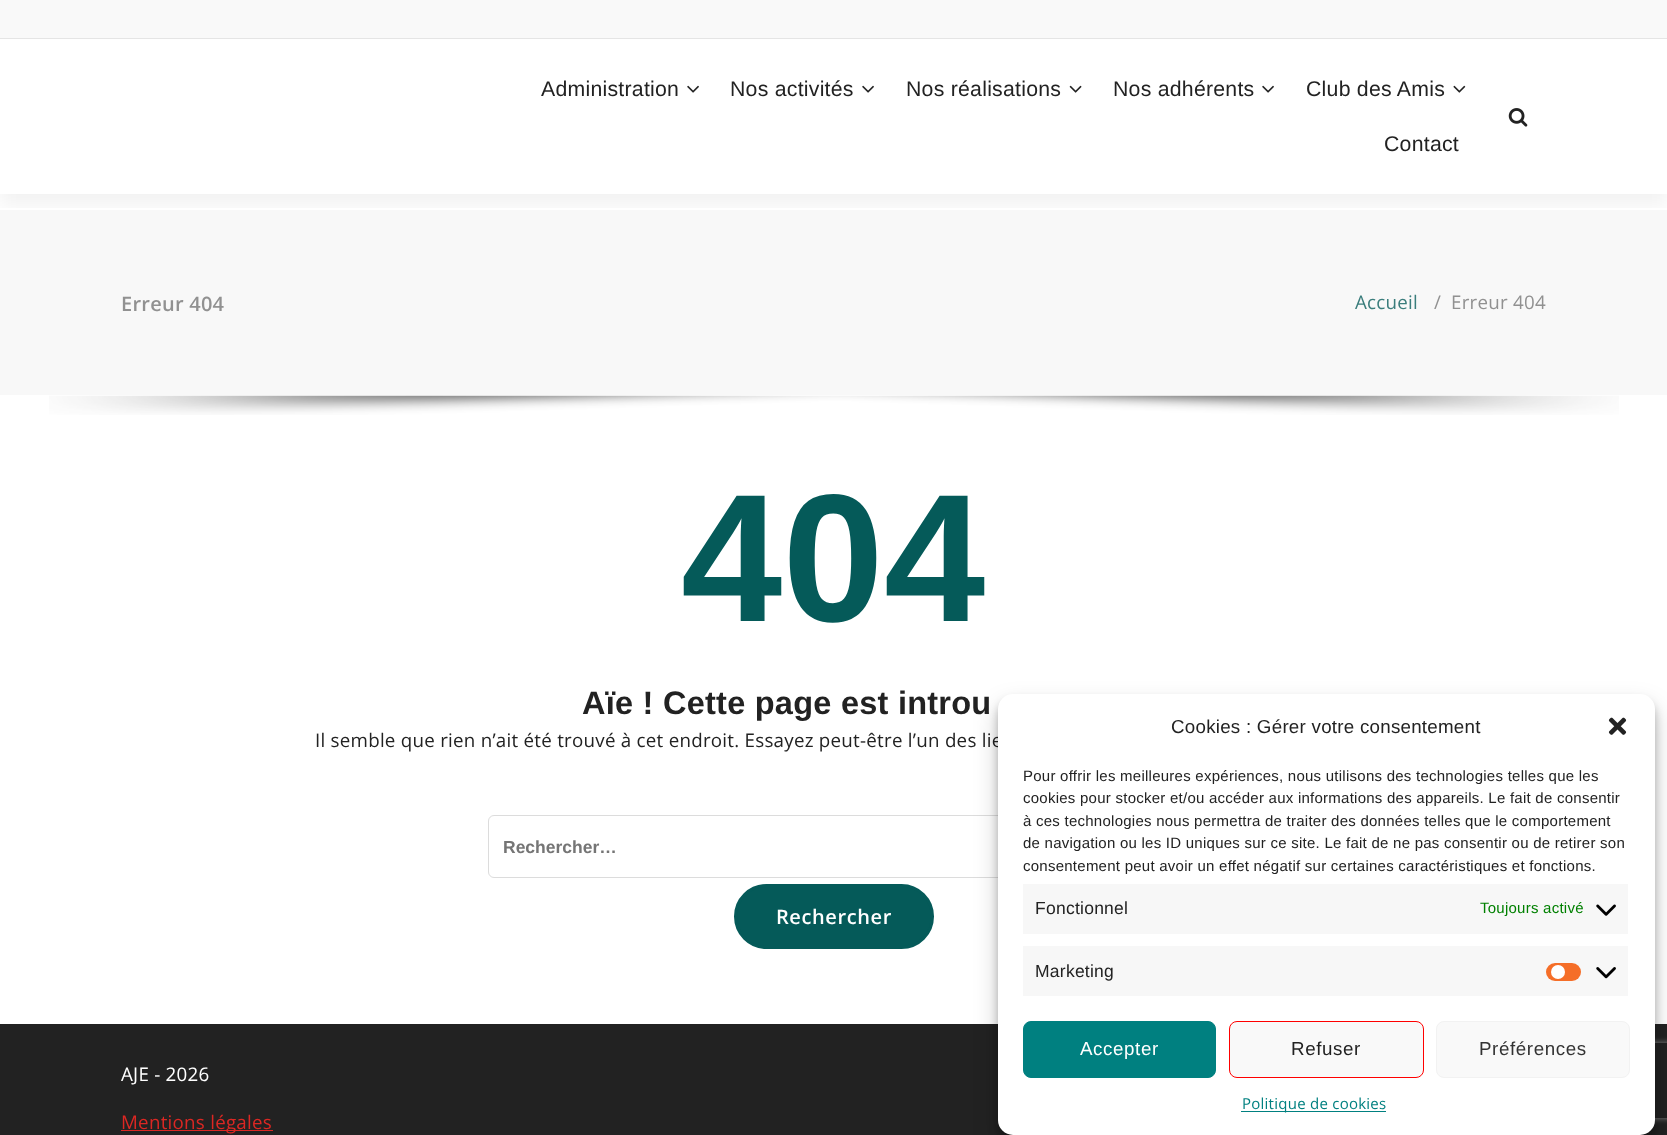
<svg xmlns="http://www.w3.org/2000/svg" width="1667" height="1135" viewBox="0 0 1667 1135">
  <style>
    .t1 { font: 21.25px Liberation Sans; letter-spacing: 0.25px; fill: #222; }
    .t2 { font: 600 20px Open Sans; letter-spacing: 0.25px; fill: #919191; }
    .t3 { font: 18.75px Open Sans; letter-spacing: 0.25px; fill: #3a7d7c; }
    .t4 { font: 18.75px Open Sans; letter-spacing: 0.25px; fill: #919191; }
    .t5 { font: bold 182px Liberation Sans; letter-spacing: 0.25px; fill: #055a59; }
    .t6 { font: bold 32.5px Liberation Sans; letter-spacing: 0.25px; fill: #222; }
    .t7 { font: 18.75px Open Sans; letter-spacing: 0.25px; fill: #222; }
    .t8 { font: bold 17.5px Liberation Sans; fill: #757575; }
    .t9 { font: 600 20px Open Sans; letter-spacing: 0.6px; fill: #fff; }
    .t10 { font: 18.75px Open Sans; letter-spacing: 0.25px; fill: #fff; }
    .t11 { font: 18.75px Open Sans; letter-spacing: 0.25px; fill: #db2723; }
    .t12 { font: 18.75px Liberation Sans; letter-spacing: 0.25px; fill: #222; }
    .t13 { font: 15px Liberation Sans; letter-spacing: 0.25px; fill: #222; }
    .t14 { font: 17.5px Liberation Sans; letter-spacing: 0.25px; fill: #222; }
    .t15 { font: 15px Liberation Sans; letter-spacing: 0.25px; fill: #008000; }
    .t16 { font: 18.75px Liberation Sans; letter-spacing: 0.6px; fill: #fff; }
    .t17 { font: 18.75px Liberation Sans; letter-spacing: 0.6px; fill: #222; }
    .t18 { font: 18.75px Liberation Sans; letter-spacing: 0.6px; fill: #333; }
    .t19 { font: 15px Open Sans; letter-spacing: 0.25px; fill: #008080; }
  </style>
  <defs>
    <clipPath id="clip1"><rect x="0" y="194" width="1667" height="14"/></clipPath>
    <clipPath id="clip2"><path d="M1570 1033H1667V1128H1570ZM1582.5 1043H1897.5C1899 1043 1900 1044 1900 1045.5V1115.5C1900 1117 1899 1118 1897.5 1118H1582.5C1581 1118 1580 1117 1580 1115.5V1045.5C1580 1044 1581 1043 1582.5 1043Z" clip-rule="evenodd"/></clipPath>
  </defs>
  <rect width="100%" height="100%" fill="#fff"/>
  <rect x="0" y="210" width="1667" height="185" fill="#f8f8f8"/>
  <g clip-path="url(#clip1)">
    <rect x="0" y="51" width="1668" height="155" fill="#0000000d" filter="blur(9.5px)"/>
  </g>
  <rect x="0" y="0" width="1667" height="38" fill="#f9f9f9"/>
  <rect x="0" y="38" width="1667" height="1" fill="#e5e5e5"/>
  <text x="541" y="96" class="t1">Administration</text>
  <image x="687" y="85" width="12" height="8" href="images/1.png"/>
  <text x="730" y="96" class="t1">Nos activités</text>
  <image x="862" y="85" width="12" height="8" href="images/1.png"/>
  <text x="906" y="96" class="t1">Nos réalisations</text>
  <image x="1069" y="85" width="13" height="8" href="images/2.png"/>
  <text x="1113" y="96" class="t1">Nos adhérents</text>
  <image x="1262" y="85" width="12" height="8" href="images/1.png"/>
  <text x="1306" y="96" class="t1">Club des Amis</text>
  <image x="1453" y="85" width="13" height="8" href="images/3.png"/>
  <text x="1384" y="151" class="t1">Contact</text>
  <image x="1508" y="108" width="20" height="19" href="images/4.png"/>
  <text x="121" y="311" class="t2">Erreur 404</text>
  <text x="1355" y="309" class="t3">Accueil</text>
  <text x="1434" y="309" class="t4">/</text>
  <text x="1451" y="309" class="t4">Erreur 404</text>
  <image x="49" y="395" width="1570" height="20" href="images/5.png"/>
  <text x="681" y="621" class="t5">404</text>
  <text x="582" y="714" class="t6">Aïe ! Cette page est introu</text>
  <text x="315" y="747" class="t7">Il semble que rien n’ait été trouvé à cet endroit. Essayez peut-être l’un des lie</text>
  <rect x="488.5" y="815.5" width="692" height="62" rx="5.5" fill="none" stroke="#dcdcdc"/>
  <text x="503" y="853" class="t8">Rechercher…</text>
  <rect x="735.5" y="885.5" width="197" height="62" rx="31" fill="#055a59" stroke="#055a59" stroke-width="3"/>
  <text x="776" y="924" class="t9">Rechercher</text>
  <rect x="0" y="1024" width="1667" height="111" fill="#222"/>
  <text x="121" y="1081" class="t10">AJE - 2026</text>
  <rect x="121" y="1130" width="152" height="1" fill="#db2723"/>
  <text x="121" y="1129" class="t11">Mentions légales</text>
  <rect x="998" y="701" width="657" height="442" rx="15" fill="#0000003b" filter="blur(4px)"/>
  <rect x="998" y="706" width="657" height="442" rx="15" fill="#00000030" filter="blur(12.5px)"/>
  <g clip-path="url(#clip2)">
    <rect x="1580" y="1043" width="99" height="75" rx="2.5" fill="#808080" filter="blur(3px)"/>
  </g>
  <rect x="998" y="694" width="657" height="441" rx="15" fill="#fff"/>
  <text x="1171" y="733" class="t12">Cookies : Gérer votre consentement</text>
  <image x="1608" y="717" width="19" height="18" href="images/6.png"/>
  <text x="1023" y="781" class="t13">Pour offrir les meilleures expériences, nous utilisons des technologies telles que les</text>
  <text x="1023" y="803" class="t13">cookies pour stocker et/ou accéder aux informations des appareils. Le fait de consentir</text>
  <text x="1023" y="826" class="t13">à ces technologies nous permettra de traiter des données telles que le comportement</text>
  <text x="1023" y="848" class="t13">de navigation ou les ID uniques sur ce site. Le fait de ne pas consentir ou de retirer son</text>
  <text x="1023" y="871" class="t13">consentement peut avoir un effet négatif sur certaines caractéristiques et fonctions.</text>
  <rect x="1023" y="884" width="605" height="50" fill="#f7f7f7"/>
  <text x="1035" y="914" class="t14">Fonctionnel</text>
  <text x="1480" y="913" class="t15">Toujours activé</text>
  <image x="1596" y="904" width="20" height="12" href="images/7.png"/>
  <rect x="1023" y="946" width="605" height="50" fill="#f7f7f7"/>
  <text x="1035" y="977" class="t14">Marketing</text>
  <rect x="1546" y="963" width="35" height="18" rx="9" fill="#f56e28"/>
  <circle cx="1558" cy="972" r="7" fill="#fff"/>
  <image x="1596" y="967" width="20" height="12" href="images/8.png"/>
  <rect x="1023.5" y="1021.5" width="192" height="56" rx="7.5" fill="#008080" stroke="#008080"/>
  <text x="1080" y="1055" class="t16">Accepter</text>
  <rect x="1229.5" y="1021.5" width="194" height="56" rx="7.5" fill="#f9f9f9" stroke="#f00"/>
  <text x="1291" y="1055" class="t17">Refuser</text>
  <rect x="1436.5" y="1021.5" width="193" height="56" rx="7.5" fill="#f9f9f9" stroke="#f2f2f2"/>
  <text x="1479" y="1055" class="t18">Préférences</text>
  <rect x="1241" y="1111" width="145" height="1" fill="#008080"/>
  <text x="1242" y="1109" class="t19">Politique de cookies</text>
</svg>
